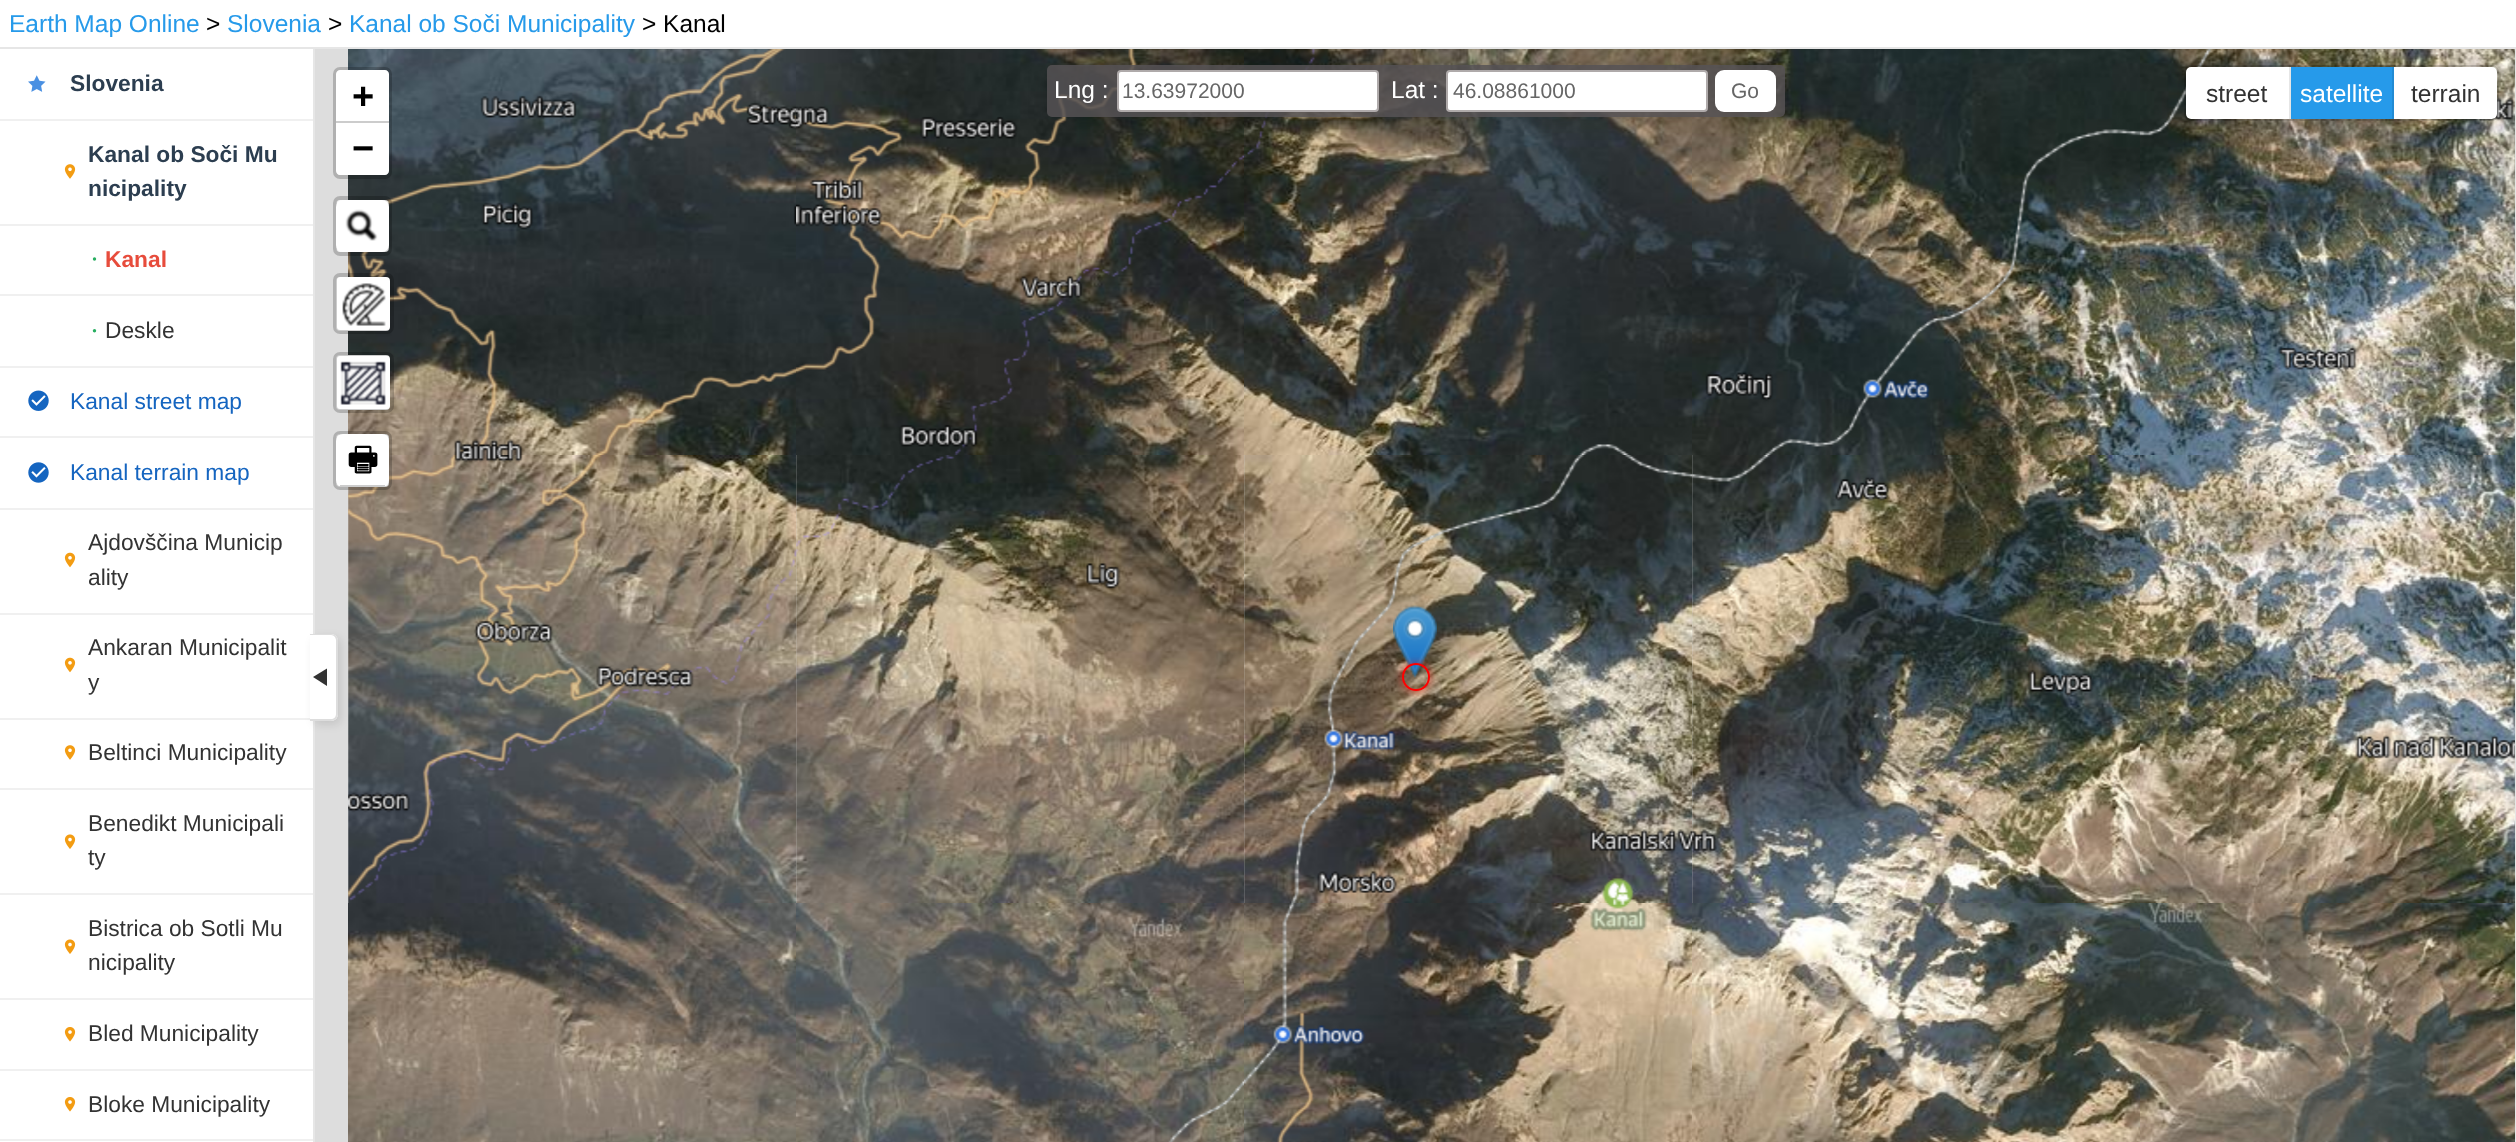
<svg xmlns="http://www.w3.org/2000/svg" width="2516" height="1142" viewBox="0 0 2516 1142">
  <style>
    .t1 { font: 24.5px Liberation Sans; fill: #269aea; }
    .t2 { font: 24.5px Liberation Sans; fill: #000; }
    .t3 { font: bold 22.75px Liberation Sans; fill: #2c3e50; }
    .t4 { font: bold 22.75px Liberation Sans; fill: #e74c3c; }
    .t5 { font: 22.75px Liberation Sans; fill: #333; }
    .t6 { font: 22.75px Liberation Sans; fill: #1565c0; }
    .t7 { font: bold 38px Liberation Sans; fill: #000; }
    .t8 { font: bold 33px 'Noto Sans Symbols 2'; fill: #000; }
    .t9 { font: 24.5px Liberation Sans; fill: #fff; }
    .t10 { font: 21px Liberation Sans; fill: #666; }
    .t11 { font: 24.5px Liberation Sans; fill: #333; }
  </style>
  <defs>
    <clipPath id="clip1"><path d="M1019 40H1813V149H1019ZM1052 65H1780C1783 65 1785 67 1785 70V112C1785 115 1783 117 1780 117H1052C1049 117 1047 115 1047 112V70C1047 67 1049 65 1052 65Z" clip-rule="evenodd"/></clipPath>
    <clipPath id="clip2"><path d="M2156 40H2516V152H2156ZM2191 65H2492C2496 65 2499 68 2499 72V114C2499 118 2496 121 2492 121H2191C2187 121 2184 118 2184 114V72C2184 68 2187 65 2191 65Z" clip-rule="evenodd"/></clipPath>
    <clipPath id="clip3"><path d="M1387 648H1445V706H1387ZM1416 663C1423.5 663 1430 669.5 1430 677C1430 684.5 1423.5 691 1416 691C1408.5 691 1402 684.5 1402 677C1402 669.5 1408.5 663 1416 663Z" clip-rule="evenodd"/></clipPath>
  </defs>
  <rect width="100%" height="100%" fill="#fff"/>
  <text x="9" y="32" class="t1">Earth Map Online</text>
  <text x="206" y="32" class="t2">&gt;</text>
  <text x="227" y="32" class="t1">Slovenia</text>
  <text x="328" y="32" class="t2">&gt;</text>
  <text x="349" y="32" class="t1">Kanal ob Soči Municipality</text>
  <text x="642" y="32" class="t2">&gt; Kanal</text>
  <rect x="0" y="47" width="313" height="2" fill="#e6e6e6"/>
  <rect x="0" y="119" width="313" height="2" fill="#f0f0f0"/>
  <image x="28" y="75" width="18" height="17" href="images/1.png"/>
  <text x="70" y="91" class="t3">Slovenia</text>
  <rect x="0" y="224" width="313" height="2" fill="#f0f0f0"/>
  <image x="64" y="164" width="12" height="15" href="images/2.png"/>
  <text x="88" y="162" class="t3">Kanal ob Soči Mu</text>
  <text x="88" y="196" class="t3">nicipality</text>
  <rect x="0" y="294" width="313" height="2" fill="#f0f0f0"/>
  <circle cx="94.5" cy="259" r="1.7" fill="#27ae60"/>
  <text x="105" y="267" class="t4">Kanal</text>
  <rect x="0" y="366" width="313" height="2" fill="#f0f0f0"/>
  <circle cx="94.5" cy="330.8" r="1.7" fill="#27ae60"/>
  <text x="105" y="338" class="t5">Deskle</text>
  <rect x="0" y="436" width="313" height="2" fill="#f0f0f0"/>
  <image x="28" y="390" width="21" height="21" href="images/3.png"/>
  <text x="70" y="409" class="t6">Kanal street map</text>
  <rect x="0" y="508" width="313" height="2" fill="#f0f0f0"/>
  <image x="28" y="462" width="21" height="21" href="images/4.png"/>
  <text x="70" y="480" class="t6">Kanal terrain map</text>
  <rect x="0" y="613" width="313" height="2" fill="#f0f0f0"/>
  <image x="64" y="552" width="12" height="16" href="images/5.png"/>
  <text x="88" y="550" class="t5">Ajdovščina Municip</text>
  <text x="88" y="585" class="t5">ality</text>
  <rect x="0" y="718" width="313" height="2" fill="#f0f0f0"/>
  <image x="64" y="657" width="12" height="16" href="images/5.png"/>
  <text x="88" y="655" class="t5">Ankaran Municipalit</text>
  <text x="88" y="690" class="t5">y</text>
  <rect x="0" y="788" width="313" height="2" fill="#f0f0f0"/>
  <image x="64" y="745" width="12" height="15" href="images/2.png"/>
  <text x="88" y="760" class="t5">Beltinci Municipality</text>
  <rect x="0" y="893" width="313" height="2" fill="#f0f0f0"/>
  <image x="64" y="834" width="12" height="15" href="images/6.png"/>
  <text x="88" y="831" class="t5">Benedikt Municipali</text>
  <text x="88" y="865" class="t5">ty</text>
  <rect x="0" y="998" width="313" height="2" fill="#f0f0f0"/>
  <image x="64" y="939" width="12" height="15" href="images/6.png"/>
  <text x="88" y="936" class="t5">Bistrica ob Sotli Mu</text>
  <text x="88" y="970" class="t5">nicipality</text>
  <rect x="0" y="1069" width="313" height="2" fill="#f0f0f0"/>
  <image x="64" y="1027" width="12" height="15" href="images/7.png"/>
  <text x="88" y="1041" class="t5">Bled Municipality</text>
  <rect x="0" y="1139" width="313" height="2" fill="#f0f0f0"/>
  <image x="64" y="1097" width="12" height="15" href="images/7.png"/>
  <text x="88" y="1112" class="t5">Bloke Municipality</text>
  <rect x="315" y="49" width="1378" height="1093" fill="#ddd"/>
  <rect x="314" y="48" width="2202" height="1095" fill="none" stroke="#e6e6e6" stroke-width="2"/>
  <image x="348" y="49" width="448" height="406" href="images/8.png"/>
  <image x="796" y="49" width="448" height="406" href="images/9.png"/>
  <image x="1244" y="49" width="448" height="406" href="images/10.png"/>
  <image x="1692" y="49" width="448" height="406" href="images/11.png"/>
  <image x="2140" y="49" width="375" height="406" href="images/12.png"/>
  <image x="796" y="455" width="449" height="448" href="images/14.png"/>
  <image x="348" y="455" width="449" height="448" href="images/13.png"/>
  <image x="1244" y="455" width="449" height="448" href="images/15.png"/>
  <image x="1692" y="455" width="448" height="448" href="images/16.png"/>
  <image x="2140" y="455" width="375" height="448" href="images/17.png"/>
  <image x="348" y="903" width="448" height="239" href="images/18.png"/>
  <image x="796" y="903" width="448" height="239" href="images/19.png"/>
  <image x="1244" y="903" width="448" height="239" href="images/20.png"/>
  <image x="1692" y="903" width="448" height="239" href="images/21.png"/>
  <image x="2140" y="903" width="375" height="239" href="images/22.png"/>
  <image x="348" y="49" width="448" height="406" href="images/23.png"/>
  <image x="796" y="49" width="448" height="406" href="images/24.png"/>
  <image x="1244" y="49" width="386" height="406" href="images/25.png"/>
  <image x="1705" y="129" width="435" height="326" href="images/26.png"/>
  <image x="2140" y="49" width="375" height="321" href="images/27.png"/>
  <image x="796" y="455" width="325" height="134" href="images/29.png"/>
  <image x="348" y="455" width="449" height="446" href="images/28.png"/>
  <image x="1291" y="455" width="402" height="448" href="images/30.png"/>
  <image x="1692" y="455" width="402" height="398" href="images/31.png"/>
  <image x="2355" y="734" width="160" height="25" href="images/32.png"/>
  <image x="1168" y="1079" width="76" height="63" href="images/33.png"/>
  <image x="1244" y="903" width="403" height="239" href="images/34.png"/>
  <image x="1409" y="632" width="52" height="46" href="images/36.png"/>
  <image x="1393" y="605" width="44" height="73" href="images/35.png"/>
  <rect x="335" y="69" width="55" height="108" rx="5" fill="none" stroke="#00000033" stroke-width="4"/>
  <path d="M340 70H385C387 70 389 72 389 74V123H336V74C336 72 338 70 340 70Z" fill="#fff"/>
  <rect x="336" y="121" width="53" height="2" fill="#ccc"/>
  <text x="352" y="109" class="t7">+</text>
  <path d="M336 123H389V171C389 173 387 175 385 175H340C338 175 336 173 336 171Z" fill="#fff"/>
  <text x="352" y="161" class="t7">−</text>
  <rect x="336" y="200" width="53" height="52" rx="4" fill="#ffffffcc"/>
  <rect x="335" y="198" width="55" height="56" rx="5" fill="none" stroke="#00000033" stroke-width="4"/>
  <rect x="336" y="200" width="53" height="52" rx="7" fill="#fff"/>
  <image x="345" y="209" width="33" height="32" href="images/37.png"/>
  <rect x="336" y="277" width="54" height="54" rx="4" fill="#fff"/>
  <image x="342" y="283" width="44" height="43" href="images/38.png"/>
  <rect x="335" y="275" width="57" height="57" rx="5" fill="none" stroke="#00000033" stroke-width="4"/>
  <rect x="336" y="355" width="54" height="55" rx="4" fill="#fff"/>
  <image x="340" y="361" width="46" height="44" href="images/39.png"/>
  <rect x="335" y="354" width="57" height="57" rx="5" fill="none" stroke="#00000033" stroke-width="4"/>
  <rect x="336" y="434" width="53" height="53" rx="4" fill="#fff"/>
  <rect x="335" y="433" width="55" height="55" rx="5" fill="none" stroke="#00000033" stroke-width="4"/>
  <rect x="336" y="434" width="53" height="53" rx="7" fill="#fff"/>
  <rect x="340" y="485" width="45" height="2" fill="#ccc"/>
  <text x="347" y="471" class="t8">🖶</text>
  <g clip-path="url(#clip1)">
    <rect x="1047" y="68" width="738" height="53" rx="5" fill="#00000033" filter="blur(9px)"/>
  </g>
  <rect x="1047" y="65" width="738" height="52" rx="5" fill="#555154d9"/>
  <text x="1054" y="98" class="t9">Lng :</text>
  <rect x="1118" y="71" width="260" height="40" rx="3" fill="#fff" stroke="#afaaaa" stroke-width="2"/>
  <text x="1122" y="98" class="t10">13.63972000</text>
  <text x="1391" y="98" class="t9">Lat :</text>
  <rect x="1447" y="71" width="260" height="40" rx="3" fill="#fff" stroke="#afaaaa" stroke-width="2"/>
  <text x="1453" y="98" class="t10">46.08861000</text>
  <rect x="1715" y="70" width="61" height="42" rx="9" fill="#fff"/>
  <text x="1731" y="98" class="t10">Go</text>
  <g clip-path="url(#clip2)">
    <rect x="2184" y="68" width="315" height="56" rx="7" fill="#0000001a" filter="blur(9px)"/>
  </g>
  <rect x="2186" y="67" width="311" height="52" rx="5" fill="#fff"/>
  <rect x="2185" y="66" width="313" height="54" rx="6" fill="none" stroke="#00000033" stroke-width="2"/>
  <rect x="2289" y="67" width="2" height="52" fill="#e6e6e6"/>
  <text x="2206" y="102" class="t11">street</text>
  <rect x="2291" y="67" width="101" height="52" fill="#269aea"/>
  <rect x="2392" y="67" width="2" height="52" fill="#228bd3"/>
  <text x="2300" y="102" class="t9">satellite</text>
  <text x="2411" y="102" class="t11">terrain</text>
  <g clip-path="url(#clip3)">
    <rect x="1402" y="663" width="28" height="28" rx="14" fill="#ff000080" filter="blur(4.5px)"/>
  </g>
  <circle cx="1416" cy="677" r="13" fill="none" stroke="#f00" stroke-width="2"/>
  <rect x="313" y="637" width="28" height="88" rx="7" fill="#0000001a" filter="blur(4.5px)"/>
  <path d="M310 634H331C335 634 338 637 338 641V714C338 718 335 721 331 721H310Z" fill="#fff"/>
  <path d="M310 634H331C335 634 338 637 338 640V714C338 718 335 721 331 721H310ZM310 635H331C334 635 336 638 336 640V714C336 717 334 719 331 719H310Z" fill="#ddd" fill-rule="evenodd"/>
  <path d="M327 668.5V686L313 677Z" fill="#333"/>
</svg>
